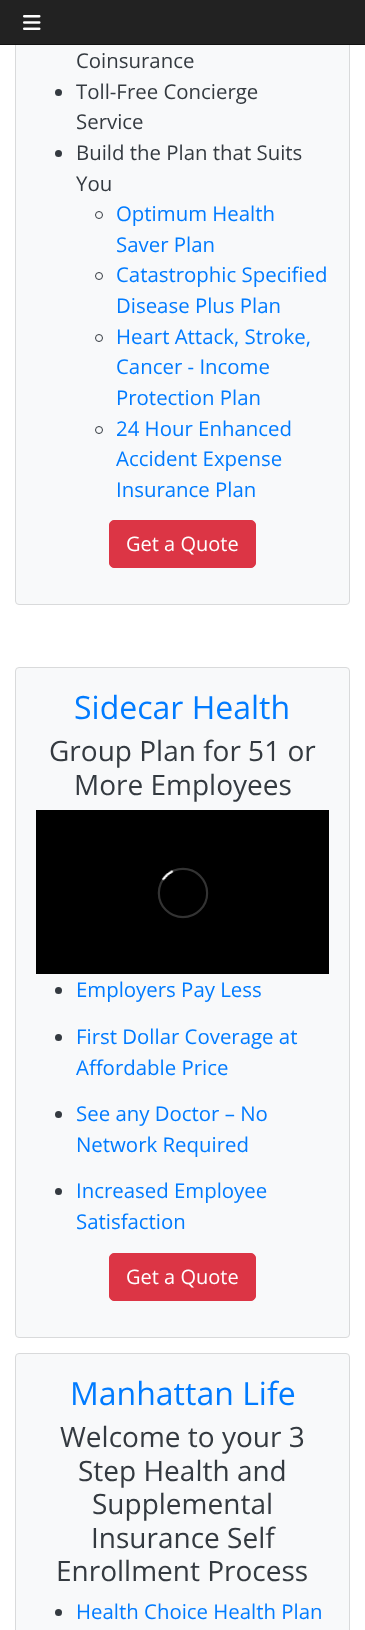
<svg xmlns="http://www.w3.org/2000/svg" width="365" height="1630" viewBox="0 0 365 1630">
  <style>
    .t1 { font: 20.4px Open Sans; fill: #343a40; }
    .t2 { font: 20.4px Open Sans; fill: #007bff; }
    .t3 { font: 20px Open Sans; fill: #fff; }
    .t4 { font: 32px Open Sans; fill: #007bff; }
    .t5 { font: 28px Open Sans; fill: #343a40; }
  </style>
  <rect width="100%" height="100%" fill="#fff"/>
  <rect x="15.5" y="-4.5" width="334" height="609" rx="3.5" fill="#f8f9fa" stroke="#d9dadb"/>
  <rect x="0" y="0" width="365" height="44" fill="#222"/>
  <rect x="0" y="44" width="365" height="1" fill="#121212"/>
  <image x="23" y="15" width="18" height="15" href="images/1.png"/>
  <text x="76" y="68" class="t1">Coinsurance</text>
  <circle cx="58.5" cy="92.5" r="3.5" fill="#343a40"/>
  <text x="76" y="99" class="t1">Toll-Free Concierge</text>
  <text x="76" y="129" class="t1">Service</text>
  <circle cx="58.5" cy="153.5" r="3.5" fill="#343a40"/>
  <text x="76" y="160" class="t1">Build the Plan that Suits</text>
  <text x="76" y="191" class="t1">You</text>
  <circle cx="99" cy="215" r="3.5" fill="none" stroke="#343a40"/>
  <text x="116" y="221" class="t2">Optimum Health</text>
  <text x="116" y="252" class="t2">Saver Plan</text>
  <circle cx="99" cy="276" r="3.5" fill="none" stroke="#343a40"/>
  <text x="116" y="282" class="t2">Catastrophic Specified</text>
  <text x="116" y="313" class="t2">Disease Plus Plan</text>
  <circle cx="99" cy="338" r="3.5" fill="none" stroke="#343a40"/>
  <text x="116" y="344" class="t2">Heart Attack, Stroke,</text>
  <text x="116" y="374" class="t2">Cancer - Income</text>
  <text x="116" y="405" class="t2">Protection Plan</text>
  <circle cx="99" cy="430" r="3.5" fill="none" stroke="#343a40"/>
  <text x="116" y="436" class="t2">24 Hour Enhanced</text>
  <text x="116" y="466" class="t2">Accident Expense</text>
  <text x="116" y="497" class="t2">Insurance Plan</text>
  <rect x="109.5" y="520.5" width="146" height="47" rx="4.5" fill="#dc3545" stroke="#dc3545"/>
  <text x="126" y="551" class="t3">Get a Quote</text>
  <rect x="15.5" y="667.5" width="334" height="670" rx="3.5" fill="#f8f9fa" stroke="#d9dadb"/>
  <text x="74" y="719" class="t4">Sidecar Health</text>
  <text x="49" y="761" class="t5">Group Plan for 51 or</text>
  <text x="74" y="795" class="t5">More Employees</text>
  <image x="36" y="810" width="293" height="164" href="images/2.png"/>
  <circle cx="58.5" cy="990.5" r="3.5" fill="#343a40"/>
  <text x="76" y="997" class="t2">Employers Pay Less</text>
  <circle cx="58.5" cy="1037.5" r="3.5" fill="#343a40"/>
  <text x="76" y="1044" class="t2">First Dollar Coverage at</text>
  <text x="76" y="1075" class="t2">Affordable Price</text>
  <circle cx="58.5" cy="1114.5" r="3.5" fill="#343a40"/>
  <text x="76" y="1121" class="t2">See any Doctor – No</text>
  <text x="76" y="1152" class="t2">Network Required</text>
  <circle cx="58.5" cy="1191.5" r="3.5" fill="#343a40"/>
  <text x="76" y="1198" class="t2">Increased Employee</text>
  <text x="76" y="1229" class="t2">Satisfaction</text>
  <rect x="109.5" y="1253.5" width="146" height="47" rx="4.5" fill="#dc3545" stroke="#dc3545"/>
  <text x="126" y="1284" class="t3">Get a Quote</text>
  <rect x="15.5" y="1353.5" width="334" height="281" rx="3.5" fill="#f8f9fa" stroke="#d9dadb"/>
  <text x="70" y="1405" class="t4">Manhattan Life</text>
  <text x="60" y="1447" class="t5">Welcome to your 3</text>
  <text x="78" y="1481" class="t5">Step Health and</text>
  <text x="92" y="1514" class="t5">Supplemental</text>
  <text x="91" y="1548" class="t5">Insurance Self</text>
  <text x="56" y="1581" class="t5">Enrollment Process</text>
  <circle cx="58.5" cy="1612.5" r="3.5" fill="#343a40"/>
  <text x="76" y="1619" class="t2">Health Choice Health Plan</text>
</svg>
